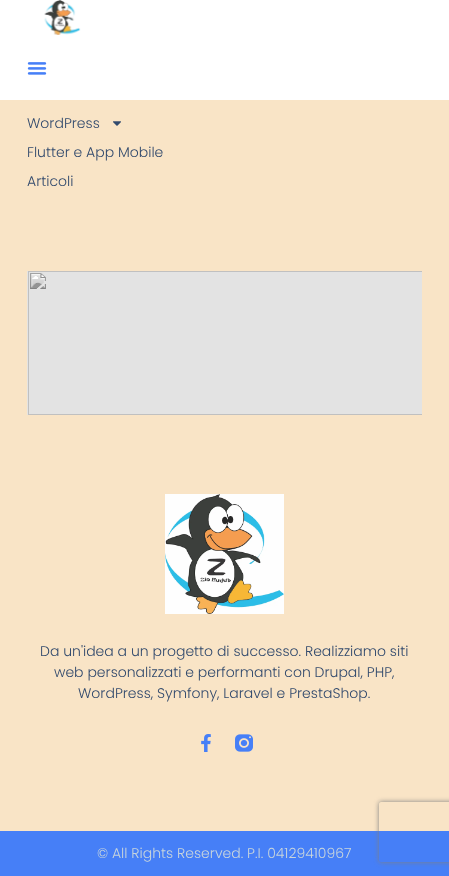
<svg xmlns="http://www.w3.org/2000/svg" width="449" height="876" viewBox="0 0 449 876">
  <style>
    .t1 { font: 300 14px Poppins; fill: #324a6d; }
    .t2 { font: 300 14px Poppins; fill: #c8d5dc; }
  </style>
  <defs>
    <clipPath id="clip1"><path d="M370 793H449V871H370ZM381 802H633C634 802 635 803 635 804V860C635 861 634 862 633 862H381C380 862 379 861 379 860V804C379 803 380 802 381 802Z" clip-rule="evenodd"/></clipPath>
  </defs>
  <rect width="100%" height="100%" fill="#f9e4c6"/>
  <rect x="0" y="0" width="449" height="100" fill="#fff"/>
  <image x="44" y="0" width="37" height="35" href="images/1.png"/>
  <image x="27" y="62" width="20" height="13" href="images/2.png"/>
  <text x="27" y="128" class="t1">WordPress</text>
  <image x="113" y="121" width="8" height="5" href="images/3.png"/>
  <text x="27" y="157" class="t1">Flutter e App Mobile</text>
  <text x="27" y="186" class="t1">Articoli</text>
  <image x="27" y="271" width="395" height="144" href="images/4.png"/>
  <image x="165" y="494" width="119" height="120" href="images/5.png"/>
  <text x="40" y="656" class="t1">Da un'idea a un progetto di successo. Realizziamo siti</text>
  <text x="54" y="677" class="t1">web personalizzati e performanti con Drupal, PHP,</text>
  <text x="78" y="698" class="t1">WordPress, Symfony, Laravel e PrestaShop.</text>
  <image x="201" y="734" width="10" height="18" href="images/6.png"/>
  <image x="235" y="734" width="18" height="18" href="images/7.png"/>
  <rect x="0" y="831" width="449" height="45" fill="#467ff7"/>
  <text x="97" y="858" class="t2">© All Rights Reserved. P.I. 04129410967</text>
  <g clip-path="url(#clip1)">
    <rect x="379" y="802" width="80" height="60" rx="2" fill="#808080" filter="blur(2.5px)"/>
  </g>
</svg>
